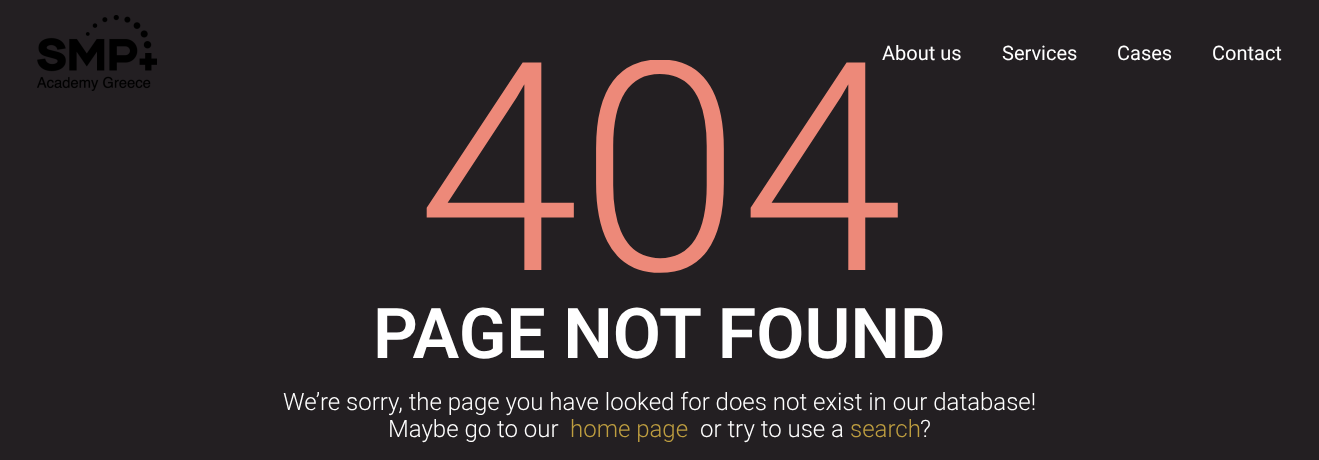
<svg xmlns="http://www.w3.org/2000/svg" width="1319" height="460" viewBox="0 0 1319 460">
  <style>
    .t1 { font: 20px Roboto; fill: #fff; }
    .t2 { font: 300 292px Roboto; fill: #ed8979; }
    .t3 { font: 600 70px Roboto; fill: #fff; }
    .t4 { font: 300 24px Roboto; fill: #fff; }
    .t5 { font: 300 24px Roboto; fill: #be9e40; }
  </style>
  <defs>
    <clipPath id="clip1"><rect x="279" y="60" width="761" height="215"/></clipPath>
  </defs>
  <rect width="100%" height="100%" fill="#231f22"/>
  <image x="37" y="15" width="120" height="76" href="images/1.png"/>
  <text x="882" y="60" class="t1">About us</text>
  <text x="1002" y="60" class="t1">Services</text>
  <text x="1117" y="60" class="t1">Cases</text>
  <text x="1212" y="60" class="t1">Contact</text>
  <g clip-path="url(#clip1)">
    <text x="417" y="270" class="t2">404</text>
  </g>
  <text x="373" y="358" class="t3">PAGE NOT FOUND</text>
  <text x="283" y="410" class="t4">We’re sorry, the page you have looked for does not exist in our database!</text>
  <text x="388" y="437" class="t4">Maybe go to our</text>
  <text x="570" y="437" class="t5">home page</text>
  <text x="700" y="437" class="t4">or try to use a</text>
  <text x="850" y="437" class="t5">search</text>
  <text x="920" y="437" class="t4">?</text>
</svg>
